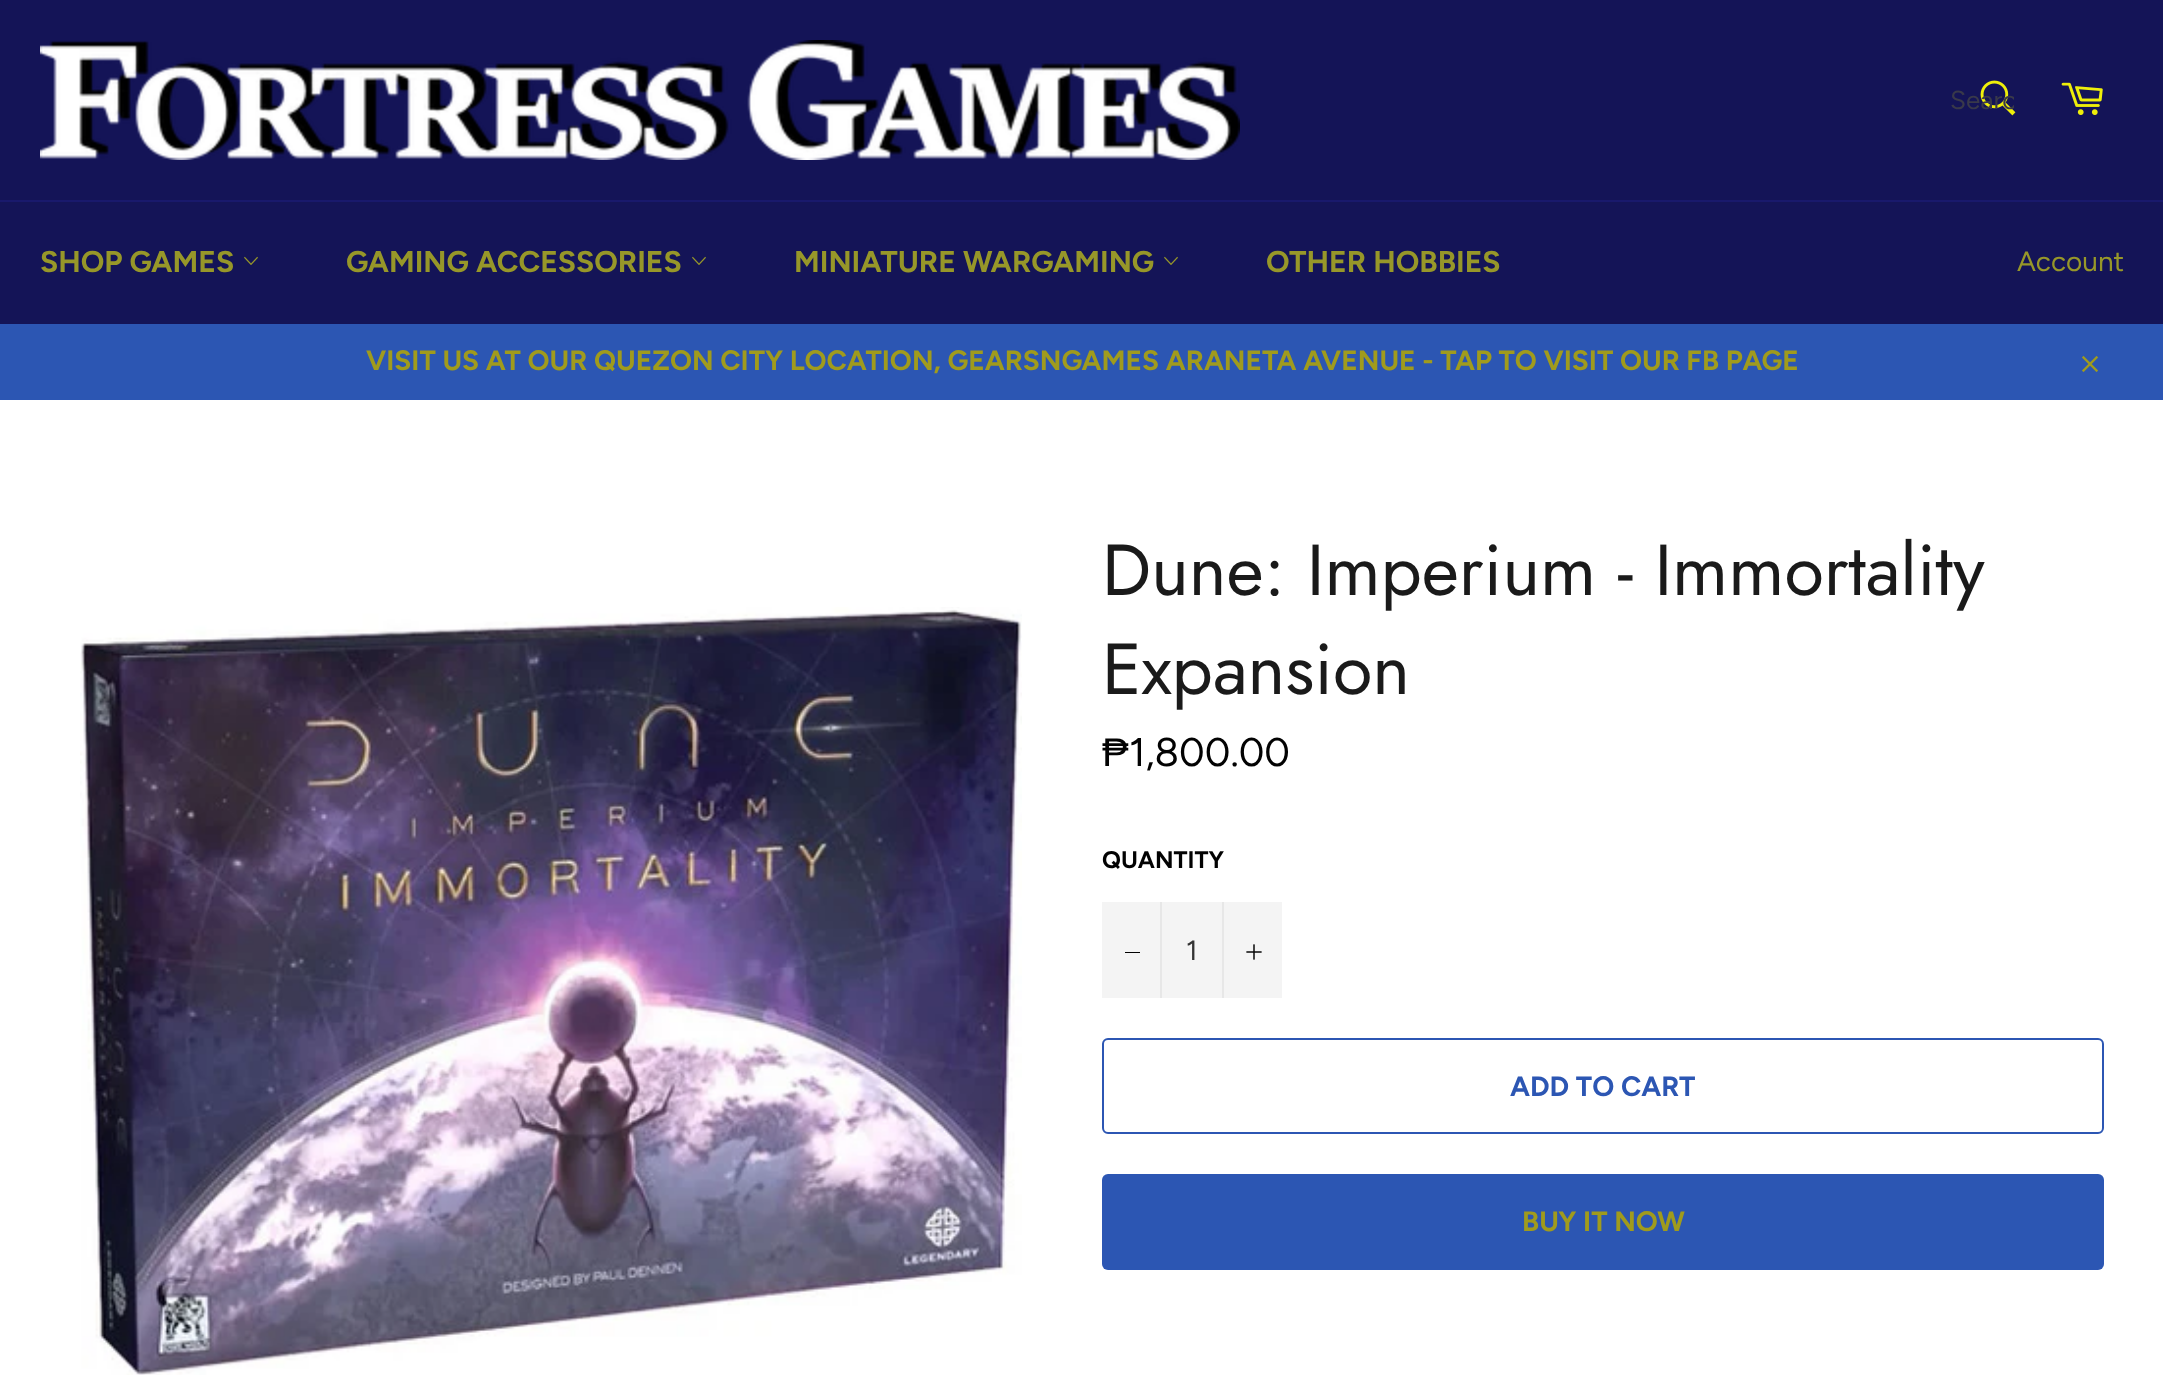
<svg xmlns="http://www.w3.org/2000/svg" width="2163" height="1375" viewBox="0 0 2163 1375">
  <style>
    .t1 { font: 26px Figtree; fill: #39394a; }
    .t2 { font: bold 30px Figtree; fill: #979729; }
    .t3 { font: 28px Figtree; fill: #979729; }
    .t4 { font: bold 28px Figtree; fill: #a09b1d; }
    .t5 { font: 72px Jost; fill: #1a1a1a; }
    .t6 { font: 40px Liberation Sans; fill: #020202; }
    .t7 { font: 40px Figtree; fill: #020202; }
    .t8 { font: bold 24px Figtree; fill: #020202; }
    .t9 { font: 28px Figtree; fill: #333; }
    .t10 { font: bold 28px Figtree; fill: #2c56b3; }
  </style>
  <defs>
    <clipPath id="clip1"><rect x="1950" y="86" width="64" height="30"/></clipPath>
  </defs>
  <rect width="100%" height="100%" fill="#fff"/>
  <rect x="0" y="0" width="2163" height="200" fill="#141457"/>
  <image x="40" y="40" width="1200" height="120" href="images/1.png"/>
  <image x="1980" y="80" width="36" height="36" href="images/2.png"/>
  <g clip-path="url(#clip1)">
    <text x="1950" y="109" class="t1">Searc</text>
  </g>
  <image x="2061" y="82" width="42" height="33" href="images/3.png"/>
  <rect x="0" y="202" width="2163" height="122" fill="#141457"/>
  <rect x="0" y="200" width="2163" height="2" fill="#19196c"/>
  <text x="40" y="272" class="t2">SHOP GAMES</text>
  <image x="244" y="256" width="14" height="9" href="images/4.png"/>
  <text x="346" y="272" class="t2">GAMING ACCESSORIES</text>
  <image x="692" y="256" width="14" height="9" href="images/4.png"/>
  <text x="794" y="272" class="t2">MINIATURE WARGAMING</text>
  <image x="1164" y="256" width="14" height="9" href="images/4.png"/>
  <text x="1266" y="272" class="t2">OTHER HOBBIES</text>
  <text x="2017" y="271" class="t3">Account</text>
  <rect x="0" y="324" width="2163" height="76" fill="#2c56b3"/>
  <text x="366" y="370" class="t4">VISIT US AT OUR QUEZON CITY LOCATION, GEARSNGAMES ARANETA AVENUE - TAP TO VISIT OUR FB PAGE</text>
  <image x="2082" y="356" width="16" height="16" href="images/5.png"/>
  <image x="80" y="607" width="942" height="768" href="images/6.png"/>
  <text x="1102" y="595" class="t5">Dune: Imperium - Immortality</text>
  <text x="1102" y="694" class="t5">Expansion</text>
  <text x="1102" y="766" class="t6">₱</text>
  <text x="1129" y="766" class="t7">1,800.00</text>
  <text x="1102" y="868" class="t8">QUANTITY</text>
  <rect x="1102" y="902" width="180" height="96" fill="#f4f4f4"/>
  <rect x="1160" y="902" width="2" height="96" fill="#e7e7e7"/>
  <rect x="1125" y="952" width="15" height="1" fill="#020202"/>
  <text x="1186" y="960" class="t9">1</text>
  <rect x="1222" y="902" width="2" height="96" fill="#e7e7e7"/>
  <image x="1246" y="944" width="16" height="16" href="images/7.png"/>
  <rect x="1103" y="1039" width="1000" height="94" rx="5" fill="none" stroke="#2c56b3" stroke-width="2"/>
  <text x="1510" y="1096" class="t10">ADD TO CART</text>
  <rect x="1102" y="1174" width="1002" height="96" rx="6" fill="#2c56b3"/>
  <text x="1522" y="1231" class="t4">BUY IT NOW</text>
</svg>
